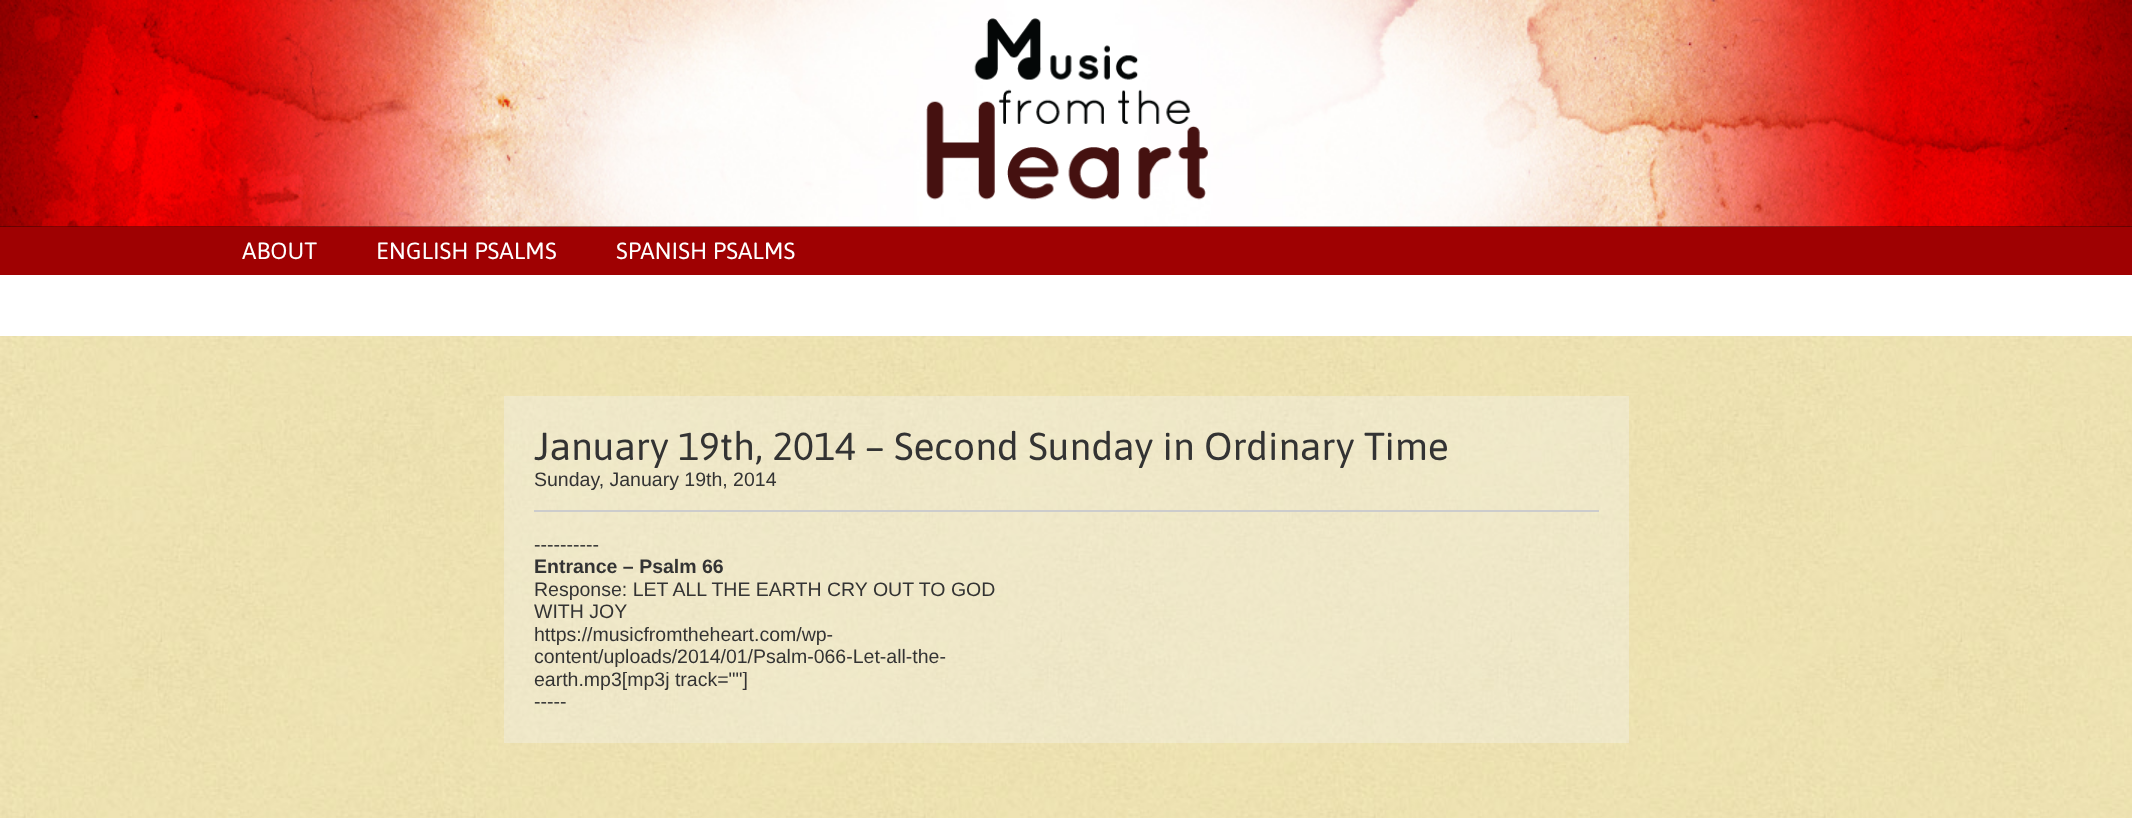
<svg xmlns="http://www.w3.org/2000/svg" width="2132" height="818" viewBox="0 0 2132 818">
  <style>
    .t1 { font: 23.5px Asap; fill: #fff; }
    .t2 { font: 39px Asap; fill: #333; }
    .t3 { font: 19.5px Liberation Sans; fill: #333; }
    .t4 { font: bold 19.5px Liberation Sans; fill: #333; }
  </style>
  <rect width="100%" height="100%" fill="#fff"/>
  <image x="0" y="336" width="2132" height="482" href="images/1.png"/>
  <rect x="0" y="226" width="2132" height="1" fill="#370403"/>
  <image x="0" y="0" width="2132" height="227" href="images/2.png"/>
  <image x="926" y="18" width="282" height="182" href="images/3.png"/>
  <rect x="0" y="227" width="2132" height="48" fill="#9f0102"/>
  <text x="242" y="259" class="t1">ABOUT</text>
  <text x="376" y="259" class="t1">ENGLISH PSALMS</text>
  <text x="616" y="259" class="t1">SPANISH PSALMS</text>
  <rect x="504" y="396" width="1125" height="347" fill="#f4f4f459"/>
  <text x="534" y="460" class="t2">January 19th, 2014 – Second Sunday in Ordinary Time</text>
  <text x="534" y="486" class="t3">Sunday, January 19th, 2014</text>
  <rect x="534" y="510" width="1065" height="2" fill="#ccc"/>
  <text x="534" y="551" class="t3">----------</text>
  <text x="534" y="573" class="t4">Entrance – Psalm 66</text>
  <text x="534" y="596" class="t3">Response: LET ALL THE EARTH CRY OUT TO GOD</text>
  <text x="534" y="618" class="t3">WITH JOY</text>
  <text x="534" y="641" class="t3">https://musicfromtheheart.com/wp-</text>
  <text x="534" y="663" class="t3">content/uploads/2014/01/Psalm-066-Let-all-the-</text>
  <text x="534" y="686" class="t3">earth.mp3[mp3j track=""]</text>
  <text x="534" y="708" class="t3">-----</text>
</svg>
